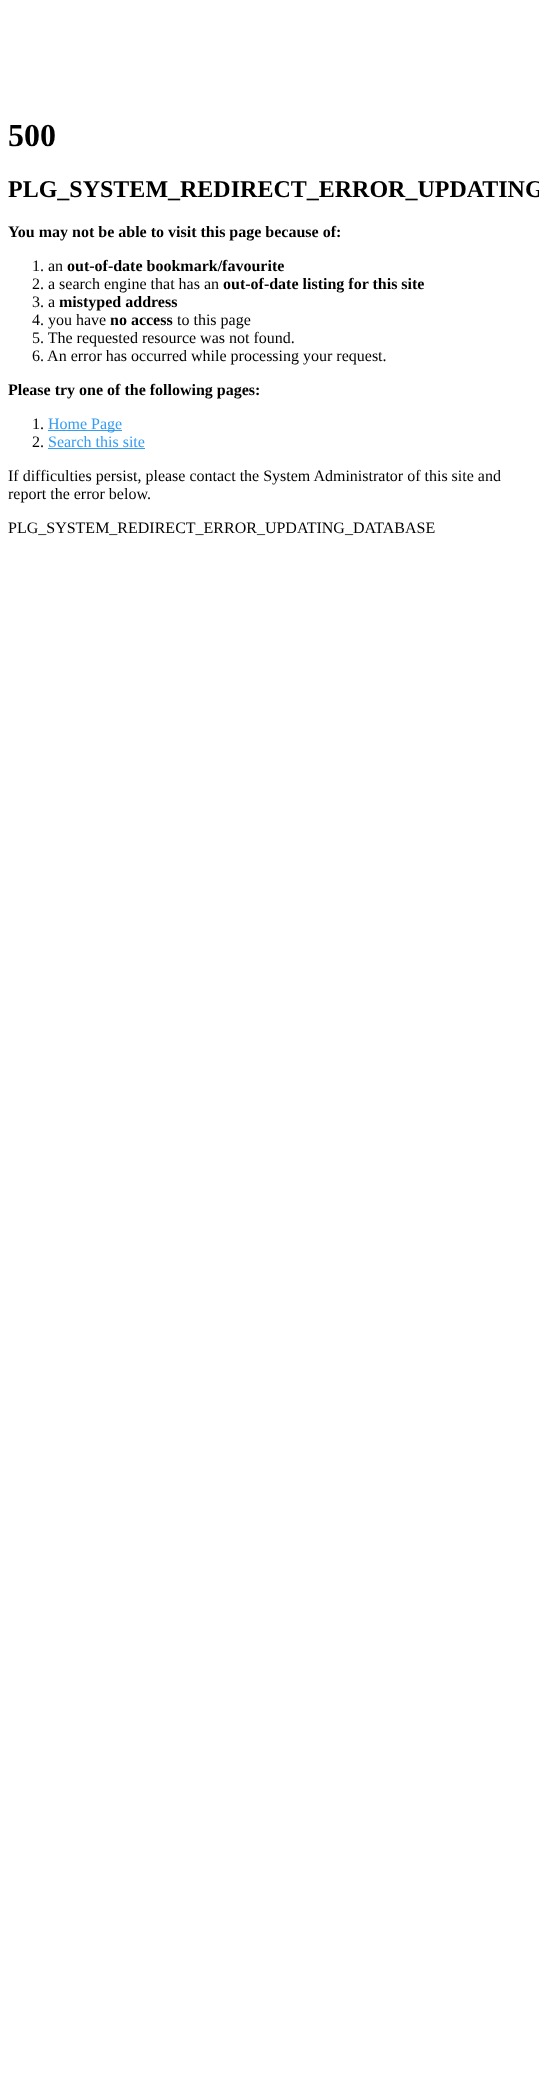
<svg xmlns="http://www.w3.org/2000/svg" width="539" height="2092" viewBox="0 0 539 2092">
  <style>
    .t1 { font: bold 32px Liberation Serif; fill: #000; }
    .t2 { font: bold 24px Liberation Serif; fill: #000; }
    .t3 { font: bold 16px Liberation Serif; fill: #000; }
    .t4 { font: 16px Liberation Serif; fill: #000; }
    .t5 { font: 16px Liberation Serif; fill: #349cf3; }
  </style>
  <rect width="100%" height="100%" fill="#fff"/>
  <text x="8" y="146" class="t1">500</text>
  <text x="8" y="197" class="t2">PLG_SYSTEM_REDIRECT_ERROR_UPDATING</text>
  <text x="8" y="237" class="t3">You may not be able to visit this page because of:</text>
  <text x="32" y="271" class="t4">1. an</text>
  <text x="67" y="271" class="t3">out-of-date bookmark/favourite</text>
  <text x="32" y="289" class="t4">2. a search engine that has an</text>
  <text x="223" y="289" class="t3">out-of-date listing for this site</text>
  <text x="32" y="307" class="t4">3. a</text>
  <text x="59" y="307" class="t3">mistyped address</text>
  <text x="32" y="325" class="t4">4. you have</text>
  <text x="110" y="325" class="t3">no access</text>
  <text x="177" y="325" class="t4">to this page</text>
  <text x="32" y="343" class="t4">5. The requested resource was not found.</text>
  <text x="32" y="361" class="t4">6. An error has occurred while processing your request.</text>
  <text x="8" y="395" class="t3">Please try one of the following pages:</text>
  <text x="32" y="429" class="t4">1.</text>
  <rect x="48" y="430" width="74" height="1" fill="#349cf3"/>
  <text x="48" y="429" class="t5">Home Page</text>
  <text x="32" y="447" class="t4">2.</text>
  <text x="48" y="447" class="t5">Search this site</text>
  <rect x="48" y="448" width="97" height="1" fill="#349cf3"/>
  <text x="8" y="481" class="t4">If difficulties persist, please contact the System Administrator of this site and</text>
  <text x="8" y="499" class="t4">report the error below.</text>
  <text x="8" y="533" class="t4">PLG_SYSTEM_REDIRECT_ERROR_UPDATING_DATABASE</text>
</svg>
